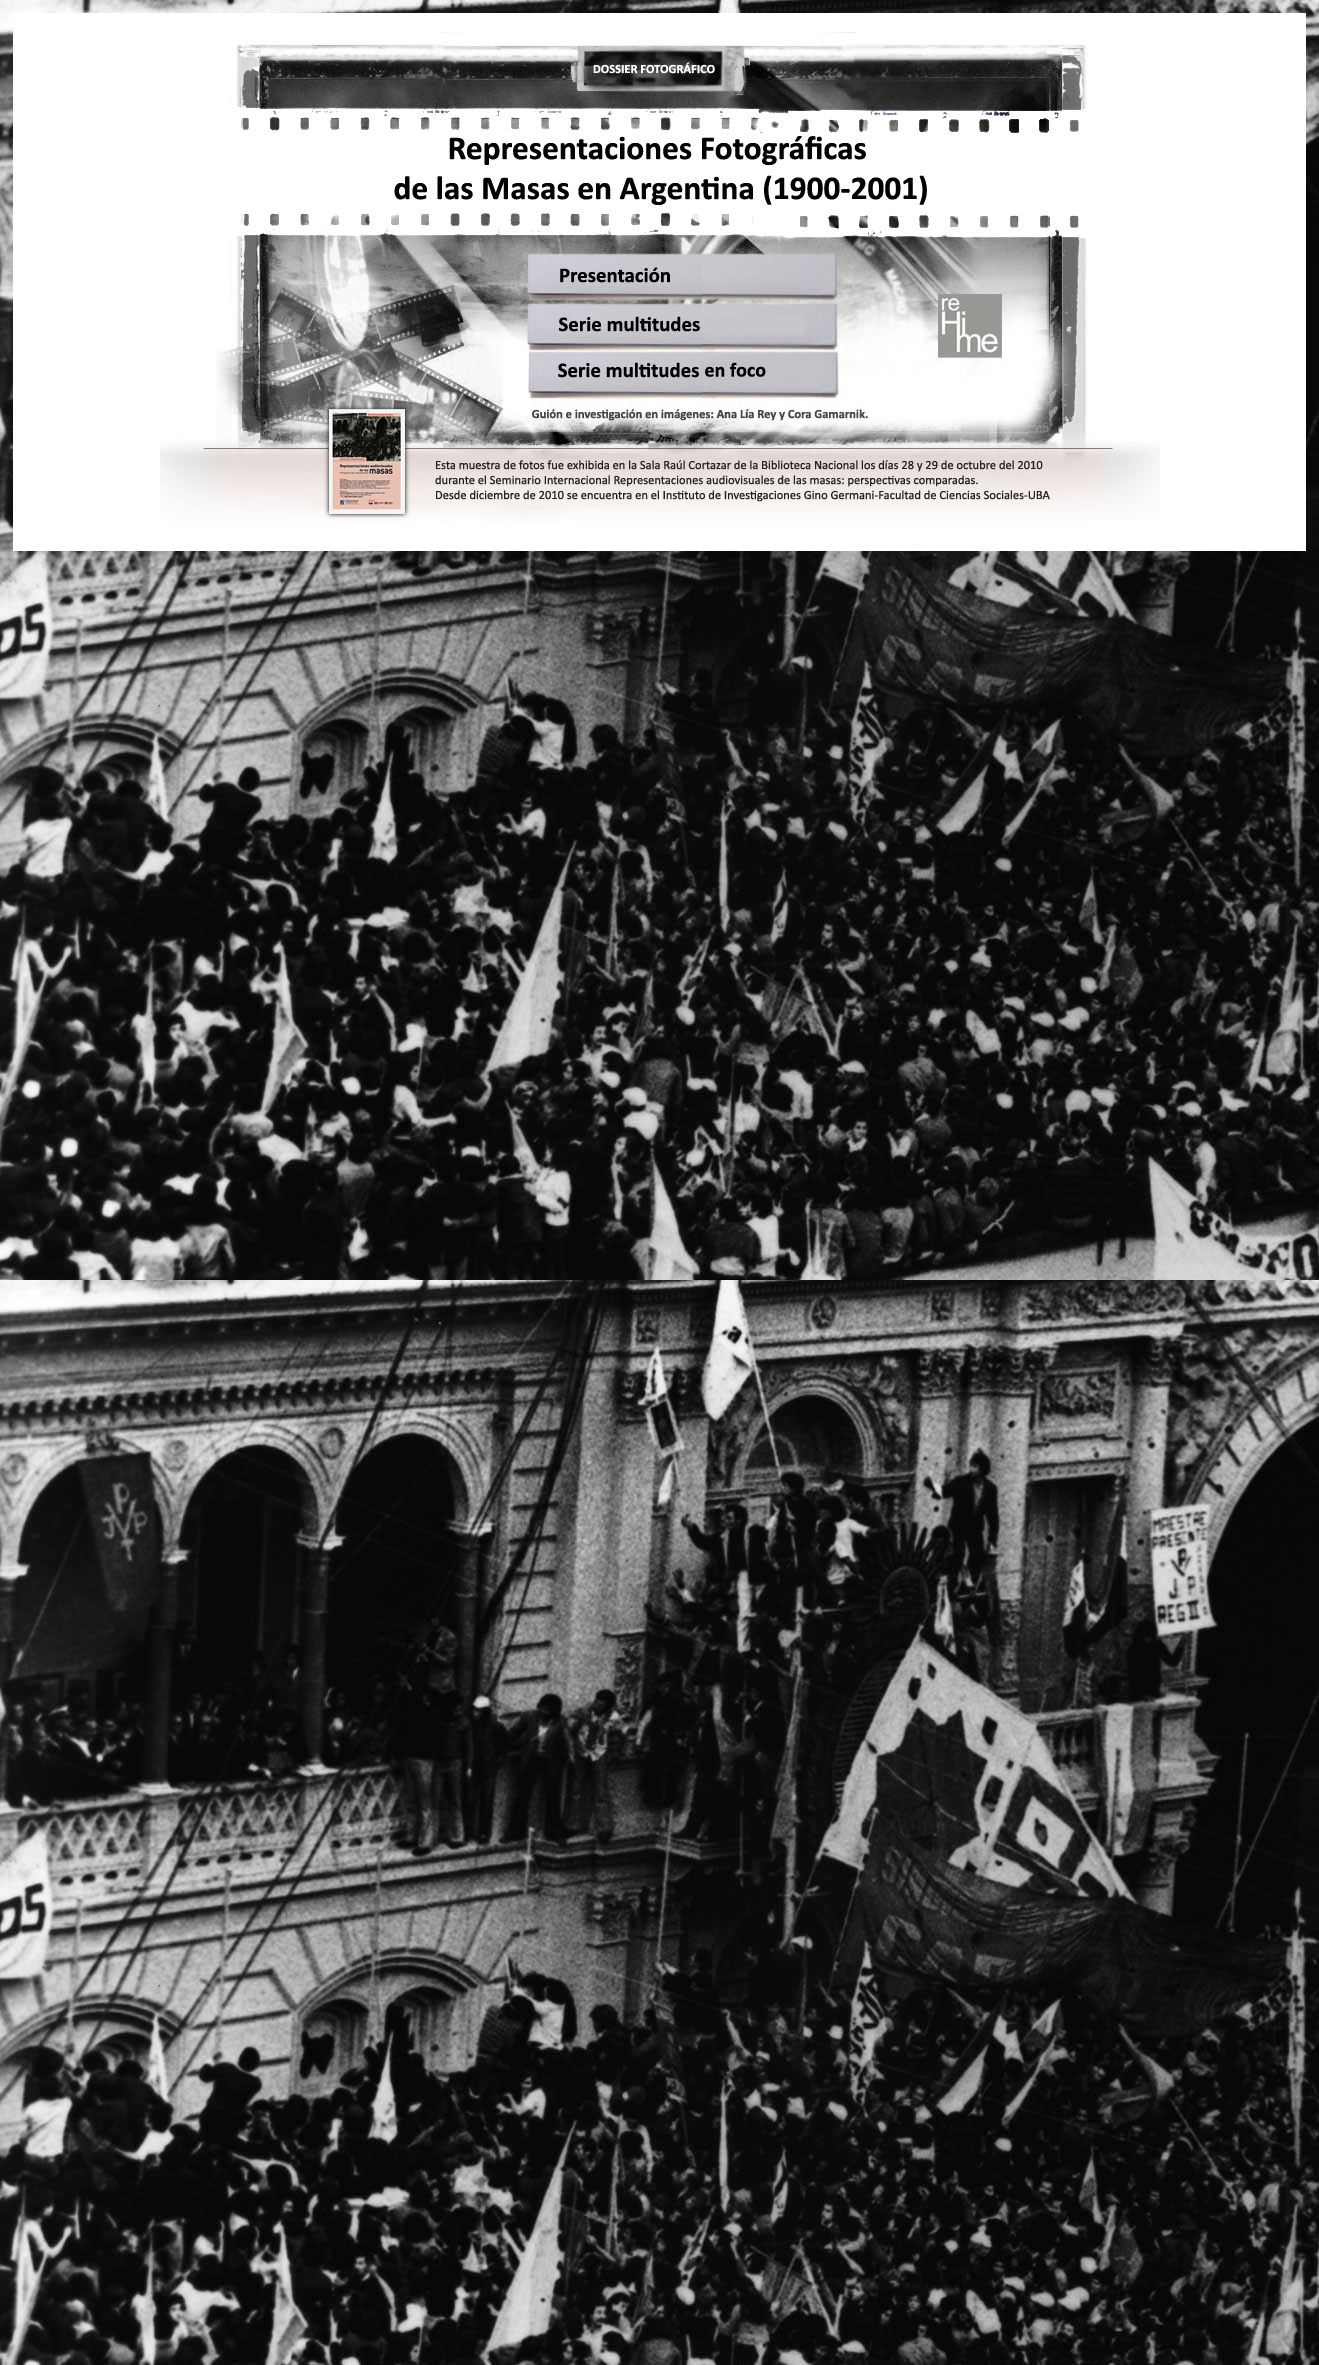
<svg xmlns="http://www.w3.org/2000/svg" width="1319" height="2365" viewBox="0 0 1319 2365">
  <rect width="100%" height="100%" fill="#fff"/>
  <image x="0" y="0" width="1319" height="2365" href="images/1.png"/>
  <rect x="13" y="13" width="1293" height="538" fill="#fff"/>
  <image x="236" y="32" width="852" height="64" href="images/2.png"/>
  <image x="230" y="96" width="858" height="205" href="images/3.png"/>
  <image x="232" y="301" width="855" height="48" href="images/4.png"/>
  <image x="216" y="349" width="871" height="55" href="images/5.png"/>
  <image x="160" y="404" width="251" height="120" href="images/6.png"/>
  <image x="411" y="404" width="749" height="118" href="images/7.png"/>
</svg>
